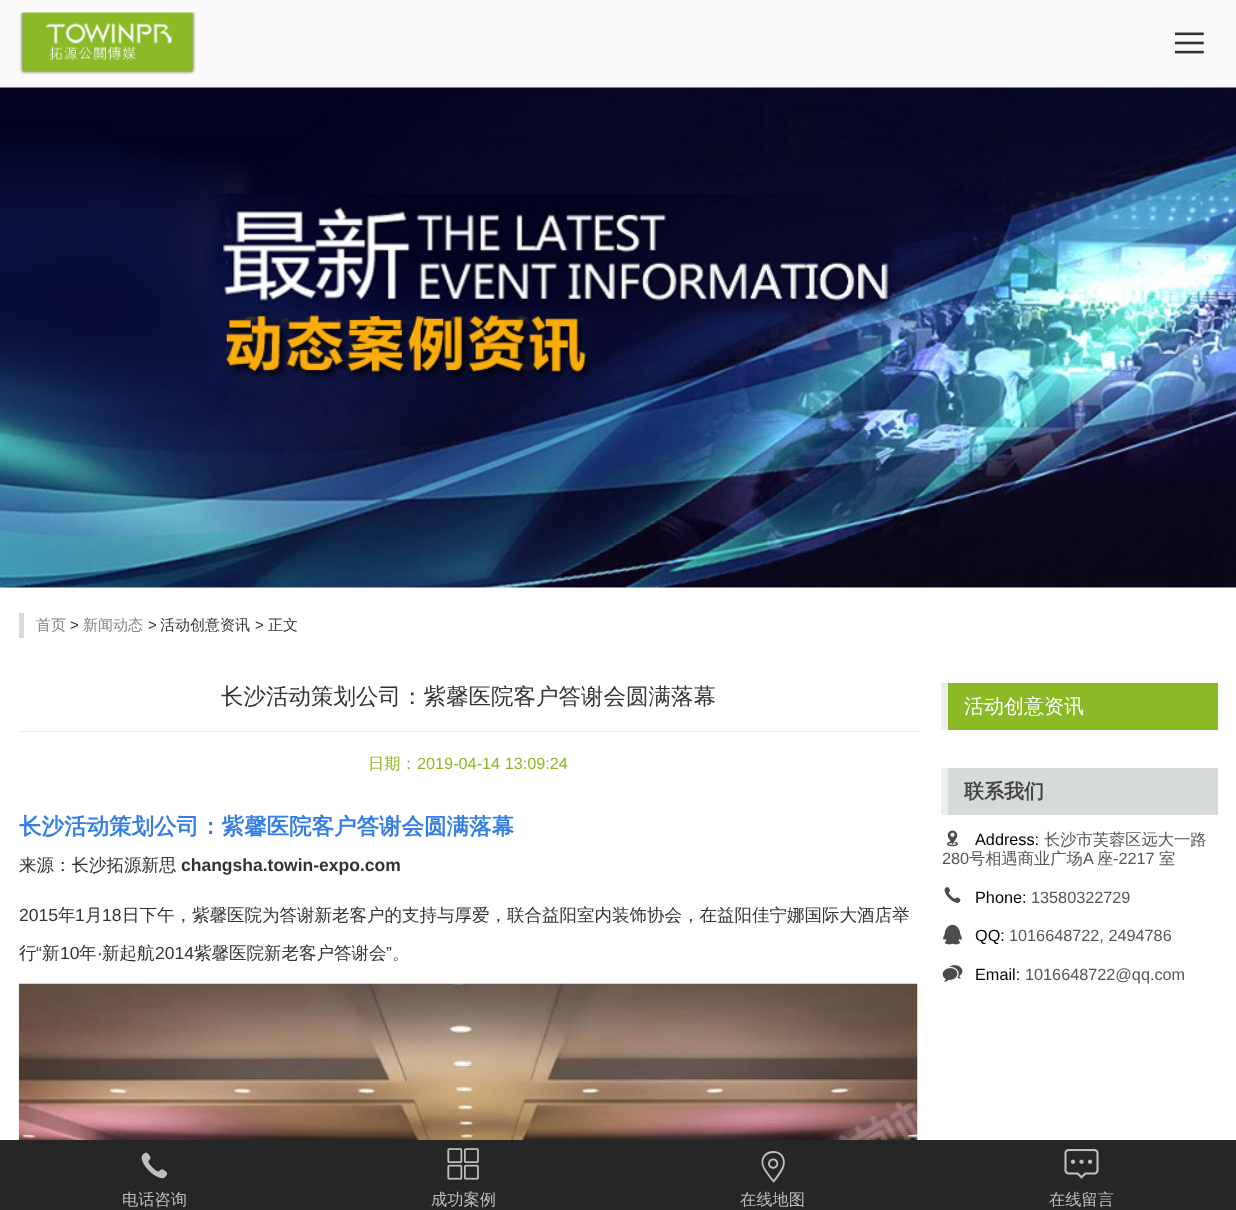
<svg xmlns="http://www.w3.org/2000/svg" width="1236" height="1210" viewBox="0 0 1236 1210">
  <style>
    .t1 { font: 500 15px WenQuanYi Zen Hei; fill: #838383; }
    .t2 { font: 15px Liberation Sans; fill: #333; }
    .t3 { font: 500 15px WenQuanYi Zen Hei; fill: #333; }
    .t4 { font: 500 22.5px WenQuanYi Zen Hei; fill: #333; }
    .t5 { font: 500 16.25px WenQuanYi Zen Hei; fill: #8aba26; }
    .t6 { font: 16.25px Liberation Sans; fill: #8aba26; }
    .t7 { font: bold 22.5px WenQuanYi Zen Hei; fill: #337fe5; }
    .t8 { font: 500 17.5px WenQuanYi Zen Hei; fill: #333; }
    .t9 { font: bold 17.5px Liberation Sans; fill: #333; }
    .t10 { font: 17.5px Liberation Sans; fill: #333; }
    .t11 { font: 500 20px WenQuanYi Zen Hei; fill: #fff; }
    .t12 { font: bold 20px WenQuanYi Zen Hei; fill: #444; }
    .t13 { font: 16.25px Liberation Sans; fill: #000; }
    .t14 { font: 500 16.25px WenQuanYi Zen Hei; fill: #585555; }
    .t15 { font: 16.25px Liberation Sans; fill: #585555; }
    .t16 { font: 500 16.25px WenQuanYi Zen Hei; fill: #bfbfbf; }
  </style>
  <rect width="100%" height="100%" fill="#fff"/>
  <rect x="0" y="0" width="1236" height="88" fill="#fafafa"/>
  <image x="19" y="12" width="177" height="63" href="images/1.png"/>
  <image x="1175" y="32" width="29" height="22" href="images/2.png"/>
  <image x="0" y="87" width="1236" height="501" href="images/3.png"/>
  <rect x="19" y="613" width="5" height="25" fill="#d7dadb"/>
  <text x="36" y="630" class="t1">首页</text>
  <text x="70" y="630" class="t2">&gt;</text>
  <text x="83" y="630" class="t1">新闻动态</text>
  <text x="148" y="630" class="t2">&gt;</text>
  <text x="160" y="630" class="t3">活动创意资讯</text>
  <text x="255" y="630" class="t2">&gt;</text>
  <text x="268" y="630" class="t3">正文</text>
  <rect x="19" y="731" width="899" height="1" fill="#eee"/>
  <text x="221" y="704" class="t4">长沙活动策划公司：紫馨医院客户答谢会圆满落幕</text>
  <text x="368" y="769" class="t5">日期：</text>
  <text x="417" y="769" class="t6">2019-04-14 13:09:24</text>
  <text x="19" y="834" class="t7">长沙活动策划公司：紫馨医院客户答谢会圆满落幕</text>
  <text x="19" y="871" class="t8">来源：长沙拓源新思</text>
  <text x="181" y="871" class="t9">changsha.towin-expo.com</text>
  <text x="19" y="921" class="t10">2015</text>
  <text x="58" y="921" class="t8">年</text>
  <text x="75" y="921" class="t10">1</text>
  <text x="85" y="921" class="t8">月</text>
  <text x="102" y="921" class="t10">18</text>
  <text x="122" y="921" class="t8">日下午，紫馨医院为答谢新老客户的支持与厚爱，联合益阳室内装饰协会，在益阳佳宁娜国际大酒店举</text>
  <text x="19" y="959" class="t8">行</text>
  <text x="36" y="959" class="t10">“</text>
  <text x="42" y="959" class="t8">新</text>
  <text x="60" y="959" class="t10">10</text>
  <text x="79" y="959" class="t8">年</text>
  <text x="102" y="959" class="t8">新起航</text>
  <text x="155" y="959" class="t10">2014</text>
  <text x="194" y="959" class="t8">紫馨医院新老客户答谢会</text>
  <text x="386" y="959" class="t10">”</text>
  <text x="97" y="959" class="t10">·</text>
  <text x="392" y="959" class="t8">。</text>
  <image x="18" y="983" width="900" height="157" href="images/4.png"/>
  <rect x="948" y="683" width="270" height="47" fill="#8aba26"/>
  <rect x="941" y="683" width="7" height="47" fill="#eee"/>
  <text x="964" y="713" class="t11">活动创意资讯</text>
  <rect x="948" y="768" width="270" height="47" fill="#d7dadb"/>
  <rect x="941" y="768" width="7" height="47" fill="#eee"/>
  <text x="964" y="798" class="t12">联系我们</text>
  <image x="947" y="830" width="11" height="17" href="images/5.png"/>
  <text x="975" y="845" class="t13">Address:</text>
  <text x="1044" y="845" class="t14">长沙市芙蓉区远大一路</text>
  <text x="942" y="864" class="t15">280</text>
  <text x="969" y="864" class="t14">号相遇商业广场</text>
  <text x="1083" y="864" class="t15">A</text>
  <text x="1097" y="864" class="t14">座</text>
  <text x="1113" y="864" class="t15">-2217</text>
  <text x="1159" y="864" class="t14">室</text>
  <image x="944" y="887" width="17" height="16" href="images/6.png"/>
  <text x="975" y="903" class="t13">Phone:</text>
  <text x="1031" y="903" class="t15">13580322729</text>
  <image x="943" y="924" width="19" height="21" href="images/7.png"/>
  <text x="975" y="941" class="t13">QQ:</text>
  <text x="1009" y="941" class="t15">1016648722, 2494786</text>
  <image x="942" y="965" width="21" height="17" href="images/8.png"/>
  <text x="975" y="980" class="t13">Email:</text>
  <text x="1025" y="980" class="t15">1016648722@qq.com</text>
  <rect x="0" y="1140" width="1236" height="70" fill="#262626"/>
  <image x="141" y="1152" width="27" height="27" href="images/9.png"/>
  <text x="122" y="1205" class="t16">电话咨询</text>
  <image x="447" y="1148" width="32" height="32" href="images/10.png"/>
  <text x="431" y="1205" class="t16">成功案例</text>
  <image x="761" y="1151" width="24" height="32" href="images/11.png"/>
  <text x="740" y="1205" class="t16">在线地图</text>
  <image x="1064" y="1149" width="35" height="30" href="images/12.png"/>
  <text x="1049" y="1205" class="t16">在线留言</text>
</svg>
